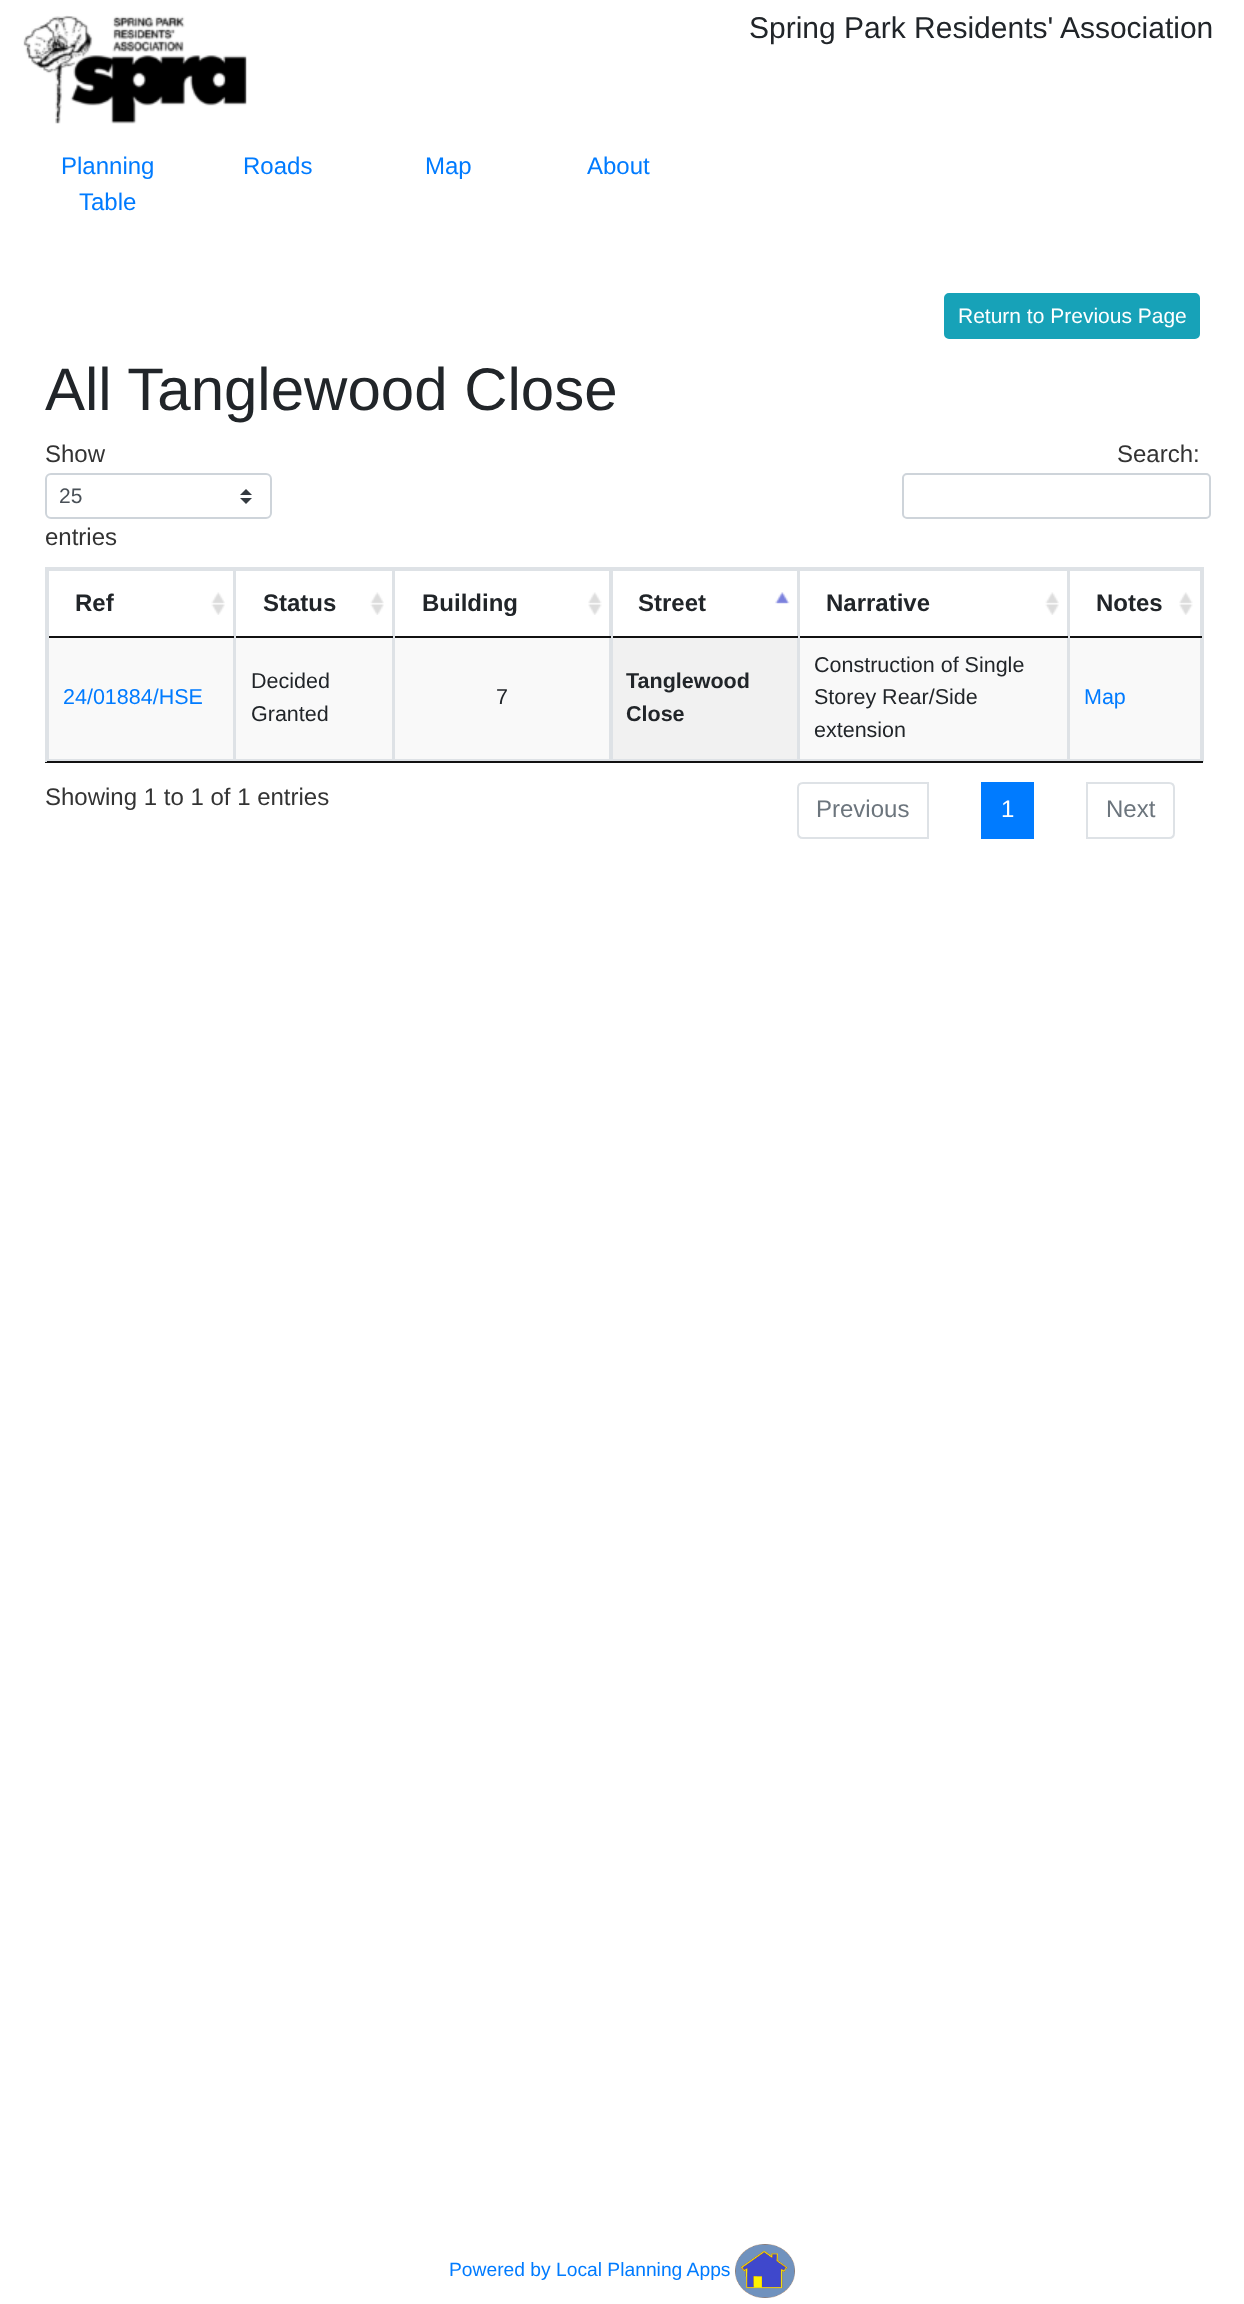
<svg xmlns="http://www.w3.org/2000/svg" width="1244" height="2304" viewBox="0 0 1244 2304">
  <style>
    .t1 { font: 30px Liberation Sans; fill: #212529; }
    .t2 { font: 24px Liberation Sans; fill: #007bff; }
    .t3 { font: 21px Liberation Sans; fill: #fff; }
    .t4 { font: 60px Liberation Sans; fill: #212529; }
    .t5 { font: 24px Liberation Sans; fill: #333; }
    .t6 { font: 21px Liberation Sans; fill: #495057; }
    .t7 { font: bold 24px Liberation Sans; fill: #212529; }
    .t8 { font: 21.5px Liberation Sans; fill: #007bff; }
    .t9 { font: 21.5px Liberation Sans; fill: #212529; }
    .t10 { font: bold 21.5px Liberation Sans; fill: #212529; }
    .t11 { font: 24px Liberation Sans; fill: #6c757d; }
    .t12 { font: 24px Liberation Sans; fill: #fff; }
    .t13 { font: 19.25px Liberation Sans; fill: #007bff; }
  </style>
  <rect width="100%" height="100%" fill="#fff"/>
  <image x="23" y="15" width="224" height="109" href="images/1.png"/>
  <text x="749" y="38" class="t1">Spring Park Residents' Association</text>
  <text x="61" y="174" class="t2">Planning</text>
  <text x="79" y="210" class="t2">Table</text>
  <text x="243" y="174" class="t2">Roads</text>
  <text x="425" y="174" class="t2">Map</text>
  <text x="587" y="174" class="t2">About</text>
  <rect x="945" y="294" width="254" height="44" rx="4" fill="#17a2b8" stroke="#17a2b8" stroke-width="2"/>
  <text x="958" y="323" class="t3">Return to Previous Page</text>
  <text x="45" y="410" class="t4">All Tanglewood Close</text>
  <text x="45" y="462" class="t5">Show</text>
  <image x="240" y="489" width="12" height="15" href="images/2.png"/>
  <rect x="46" y="474" width="225" height="44" rx="5" fill="none" stroke="#ced4da" stroke-width="2"/>
  <text x="59" y="503" class="t6">25</text>
  <text x="45" y="545" class="t5">entries</text>
  <text x="1117" y="462" class="t5">Search:</text>
  <rect x="903" y="474" width="307" height="44" rx="4" fill="none" stroke="#ced4da" stroke-width="2"/>
  <rect x="45" y="567" width="1158" height="2" fill="#dee2e6"/>
  <rect x="1202" y="567" width="2" height="195" fill="#dee2e6"/>
  <rect x="45" y="761" width="1158" height="2" fill="#111"/>
  <rect x="45" y="567" width="2" height="195" fill="#dee2e6"/>
  <image x="211" y="592" width="14" height="23" href="images/3.png"/>
  <rect x="47" y="569" width="1155" height="2" fill="#dee2e6"/>
  <rect x="233" y="569" width="1" height="69" fill="#dee2e6"/>
  <rect x="47" y="636" width="187" height="2" fill="#111"/>
  <rect x="47" y="569" width="2" height="69" fill="#dee2e6"/>
  <text x="75" y="611" class="t7">Ref</text>
  <image x="370" y="592" width="14" height="23" href="images/4.png"/>
  <rect x="392" y="569" width="1" height="69" fill="#dee2e6"/>
  <rect x="234" y="636" width="159" height="2" fill="#111"/>
  <rect x="234" y="569" width="2" height="69" fill="#dee2e6"/>
  <text x="263" y="611" class="t7">Status</text>
  <image x="588" y="592" width="14" height="23" href="images/5.png"/>
  <rect x="609" y="569" width="2" height="69" fill="#dee2e6"/>
  <rect x="393" y="636" width="218" height="2" fill="#111"/>
  <rect x="393" y="569" width="2" height="69" fill="#dee2e6"/>
  <text x="422" y="611" class="t7">Building</text>
  <image x="775" y="592" width="15" height="12" href="images/6.png"/>
  <rect x="797" y="569" width="1" height="69" fill="#dee2e6"/>
  <rect x="611" y="636" width="187" height="2" fill="#111"/>
  <rect x="611" y="569" width="2" height="69" fill="#dee2e6"/>
  <text x="638" y="611" class="t7">Street</text>
  <image x="1045" y="592" width="14" height="23" href="images/7.png"/>
  <rect x="1067" y="569" width="1" height="69" fill="#dee2e6"/>
  <rect x="798" y="636" width="270" height="2" fill="#111"/>
  <rect x="798" y="569" width="2" height="69" fill="#dee2e6"/>
  <text x="826" y="611" class="t7">Narrative</text>
  <image x="1179" y="592" width="14" height="23" href="images/5.png"/>
  <rect x="1200" y="569" width="2" height="192" fill="#dee2e6"/>
  <rect x="1068" y="636" width="134" height="2" fill="#111"/>
  <rect x="1068" y="569" width="2" height="69" fill="#dee2e6"/>
  <text x="1096" y="611" class="t7">Notes</text>
  <rect x="49" y="638" width="1151" height="121" fill="#f9f9f9"/>
  <rect x="233" y="638" width="1" height="123" fill="#dee2e6"/>
  <rect x="47" y="759" width="187" height="2" fill="#dee2e6"/>
  <rect x="47" y="638" width="2" height="123" fill="#dee2e6"/>
  <text x="63" y="704" class="t8">24/01884/HSE</text>
  <rect x="392" y="638" width="1" height="123" fill="#dee2e6"/>
  <rect x="234" y="759" width="159" height="2" fill="#dee2e6"/>
  <rect x="234" y="638" width="2" height="123" fill="#dee2e6"/>
  <text x="251" y="688" class="t9">Decided</text>
  <text x="251" y="721" class="t9">Granted</text>
  <rect x="609" y="638" width="2" height="123" fill="#dee2e6"/>
  <rect x="393" y="759" width="218" height="2" fill="#dee2e6"/>
  <rect x="393" y="638" width="2" height="123" fill="#dee2e6"/>
  <text x="496" y="704" class="t9">7</text>
  <rect x="613" y="638" width="184" height="121" fill="#f1f1f1"/>
  <rect x="797" y="638" width="1" height="123" fill="#dee2e6"/>
  <rect x="611" y="759" width="187" height="2" fill="#dee2e6"/>
  <rect x="611" y="638" width="2" height="123" fill="#dee2e6"/>
  <text x="626" y="688" class="t10">Tanglewood</text>
  <text x="626" y="721" class="t10">Close</text>
  <rect x="1067" y="638" width="1" height="123" fill="#dee2e6"/>
  <rect x="798" y="759" width="404" height="2" fill="#dee2e6"/>
  <rect x="798" y="638" width="2" height="123" fill="#dee2e6"/>
  <text x="814" y="672" class="t9">Construction of Single</text>
  <text x="814" y="704" class="t9">Storey Rear/Side</text>
  <text x="814" y="737" class="t9">extension</text>
  <rect x="1068" y="638" width="2" height="123" fill="#dee2e6"/>
  <text x="1084" y="704" class="t8">Map</text>
  <text x="45" y="805" class="t5">Showing 1 to 1 of 1 entries</text>
  <path d="M803 783H928V838H803C800 838 798 836 798 833V788C798 785 800 783 803 783Z" fill="none" stroke="#dee2e6" stroke-width="2"/>
  <text x="816" y="817" class="t11">Previous</text>
  <rect x="981" y="782" width="53" height="57" fill="#007bff"/>
  <text x="1001" y="817" class="t12">1</text>
  <path d="M1087 783H1169C1172 783 1174 785 1174 788V833C1174 836 1172 838 1169 838H1087Z" fill="none" stroke="#dee2e6" stroke-width="2"/>
  <text x="1106" y="817" class="t11">Next</text>
  <text x="449" y="2276" class="t13">Powered by Local Planning Apps</text>
  <image x="735" y="2244" width="60" height="54" href="images/8.png"/>
</svg>
